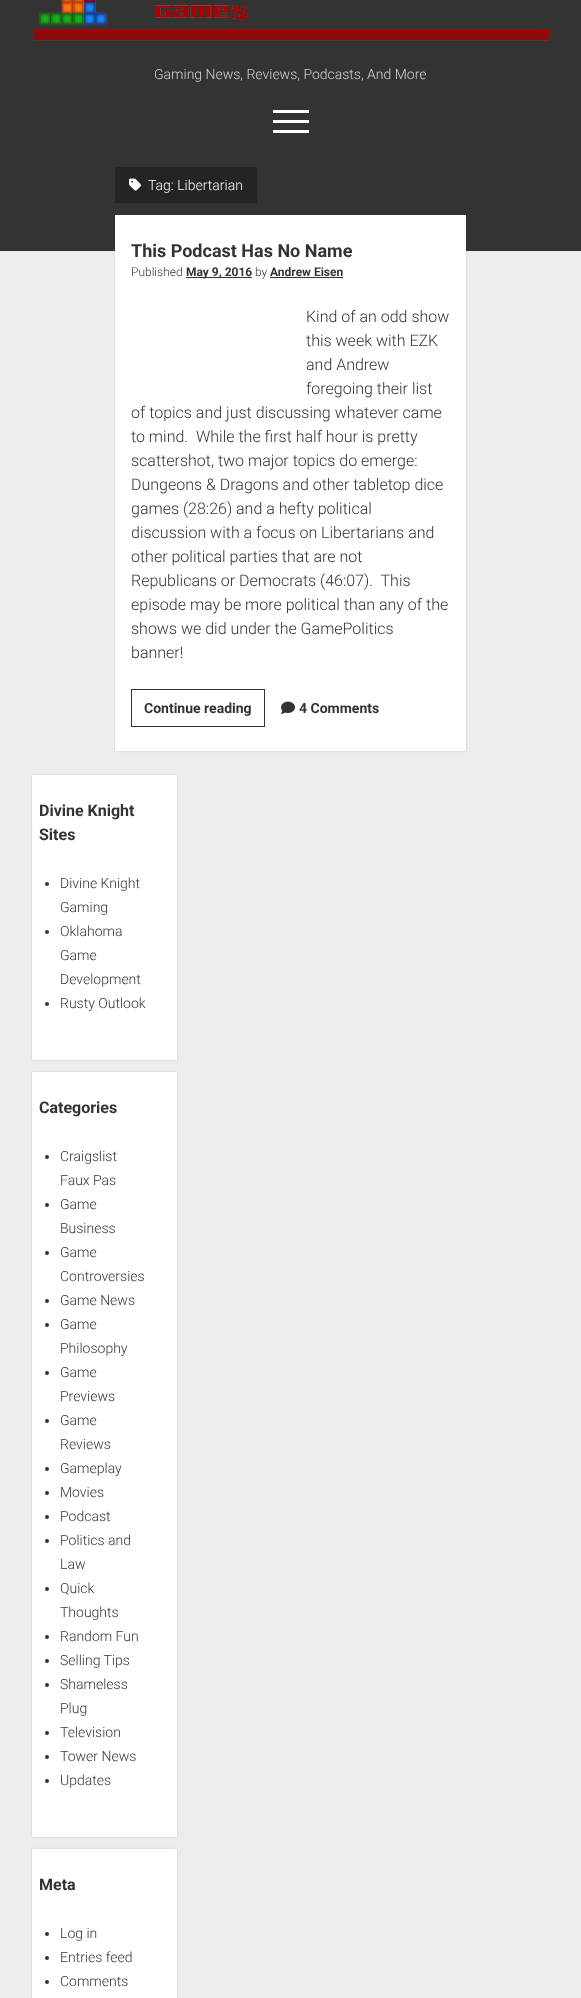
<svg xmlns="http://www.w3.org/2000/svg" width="581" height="1998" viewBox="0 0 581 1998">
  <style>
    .t1 { font: 300 14px Roboto; fill: #d4d4d4; }
    .t2 { font: 300 14px Roboto; fill: #fff; }
    .t3 { font: bold 18px Roboto; fill: #333; }
    .t4 { font: 300 12px Roboto; fill: #333; }
    .t5 { font: bold 12px Roboto; fill: #333; }
    .t6 { font: 300 16px Roboto; fill: #333; }
    .t7 { font: bold 14px Roboto; fill: #333; }
    .t8 { font: bold 16px Roboto; fill: #333; }
    .t9 { font: 300 14px Roboto; fill: #333; }
  </style>
  <rect width="100%" height="100%" fill="#ededed"/>
  <rect x="0" y="0" width="581" height="251" fill="#333"/>
  <image x="33" y="0" width="516" height="41" href="images/1.png"/>
  <text x="154" y="79" class="t1">Gaming News, Reviews, Podcasts, And More</text>
  <rect x="273" y="110" width="36" height="3" fill="#fff"/>
  <rect x="273" y="120" width="36" height="3" fill="#fff"/>
  <rect x="273" y="130" width="36" height="3" fill="#fff"/>
  <rect x="115" y="167" width="142" height="36" fill="#242424"/>
  <image x="129" y="178" width="12" height="13" href="images/2.png"/>
  <text x="148" y="190" class="t2">Tag: Libertarian</text>
  <rect x="115" y="215" width="351" height="536" fill="#3a3a3a33" filter="blur(1px)"/>
  <rect x="115" y="215" width="351" height="536" fill="#fff"/>
  <text x="131" y="257" class="t3">This Podcast Has No Name</text>
  <text x="131" y="276" class="t4">Published</text>
  <rect x="186" y="277" width="66" height="1" fill="#333"/>
  <text x="186" y="276" class="t5">May 9, 2016</text>
  <text x="255" y="276" class="t4">by</text>
  <text x="270" y="276" class="t5">Andrew Eisen</text>
  <rect x="270" y="277" width="73" height="1" fill="#333"/>
  <text x="306" y="322" class="t6">Kind of an odd show</text>
  <text x="306" y="346" class="t6">this week with EZK</text>
  <text x="306" y="370" class="t6">and Andrew</text>
  <text x="306" y="394" class="t6">foregoing their list</text>
  <text x="131" y="418" class="t6">of topics and just discussing whatever came</text>
  <text x="131" y="442" class="t6" xml:space="preserve">to mind.  While the first half hour is pretty</text>
  <text x="131" y="466" class="t6">scattershot, two major topics do emerge:</text>
  <text x="131" y="490" class="t6">Dungeons &amp; Dragons and other tabletop dice</text>
  <text x="131" y="514" class="t6">games (28:26) and a hefty political</text>
  <text x="131" y="538" class="t6">discussion with a focus on Libertarians and</text>
  <text x="131" y="562" class="t6">other political parties that are not</text>
  <text x="131" y="586" class="t6" xml:space="preserve">Republicans or Democrats (46:07).  This</text>
  <text x="131" y="610" class="t6">episode may be more political than any of the</text>
  <text x="131" y="634" class="t6">shows we did under the GamePolitics</text>
  <text x="131" y="658" class="t6">banner!</text>
  <rect x="131.5" y="689.5" width="133" height="37" fill="none" stroke="#333"/>
  <text x="144" y="713" class="t7">Continue reading</text>
  <image x="281" y="701" width="14" height="13" href="images/3.png"/>
  <text x="299" y="713" class="t7">4 Comments</text>
  <rect x="32" y="775" width="145" height="285" fill="#3a3a3a33" filter="blur(1px)"/>
  <rect x="32" y="775" width="145" height="285" fill="#fff"/>
  <text x="39" y="816" class="t8">Divine Knight</text>
  <text x="39" y="840" class="t8">Sites</text>
  <circle cx="47" cy="884" r="2" fill="#333"/>
  <text x="60" y="888" class="t9">Divine Knight</text>
  <text x="60" y="912" class="t9">Gaming</text>
  <circle cx="47" cy="932" r="2" fill="#333"/>
  <text x="60" y="936" class="t9">Oklahoma</text>
  <text x="60" y="960" class="t9">Game</text>
  <text x="60" y="984" class="t9">Development</text>
  <circle cx="47" cy="1004" r="2" fill="#333"/>
  <text x="60" y="1008" class="t9">Rusty Outlook</text>
  <rect x="32" y="1072" width="145" height="765" fill="#3a3a3a33" filter="blur(1px)"/>
  <rect x="32" y="1072" width="145" height="765" fill="#fff"/>
  <text x="39" y="1113" class="t8">Categories</text>
  <circle cx="47" cy="1157" r="2" fill="#333"/>
  <text x="60" y="1161" class="t9">Craigslist</text>
  <text x="60" y="1185" class="t9">Faux Pas</text>
  <circle cx="47" cy="1205" r="2" fill="#333"/>
  <text x="60" y="1209" class="t9">Game</text>
  <text x="60" y="1233" class="t9">Business</text>
  <circle cx="47" cy="1253" r="2" fill="#333"/>
  <text x="60" y="1257" class="t9">Game</text>
  <text x="60" y="1281" class="t9">Controversies</text>
  <circle cx="47" cy="1301" r="2" fill="#333"/>
  <text x="60" y="1305" class="t9">Game News</text>
  <circle cx="47" cy="1325" r="2" fill="#333"/>
  <text x="60" y="1329" class="t9">Game</text>
  <text x="60" y="1353" class="t9">Philosophy</text>
  <circle cx="47" cy="1373" r="2" fill="#333"/>
  <text x="60" y="1377" class="t9">Game</text>
  <text x="60" y="1401" class="t9">Previews</text>
  <circle cx="47" cy="1421" r="2" fill="#333"/>
  <text x="60" y="1425" class="t9">Game</text>
  <text x="60" y="1449" class="t9">Reviews</text>
  <circle cx="47" cy="1469" r="2" fill="#333"/>
  <text x="60" y="1473" class="t9">Gameplay</text>
  <circle cx="47" cy="1493" r="2" fill="#333"/>
  <text x="60" y="1497" class="t9">Movies</text>
  <circle cx="47" cy="1517" r="2" fill="#333"/>
  <text x="60" y="1521" class="t9">Podcast</text>
  <circle cx="47" cy="1541" r="2" fill="#333"/>
  <text x="60" y="1545" class="t9">Politics and</text>
  <text x="60" y="1569" class="t9">Law</text>
  <circle cx="47" cy="1589" r="2" fill="#333"/>
  <text x="60" y="1593" class="t9">Quick</text>
  <text x="60" y="1617" class="t9">Thoughts</text>
  <circle cx="47" cy="1637" r="2" fill="#333"/>
  <text x="60" y="1641" class="t9">Random Fun</text>
  <circle cx="47" cy="1661" r="2" fill="#333"/>
  <text x="60" y="1665" class="t9">Selling Tips</text>
  <circle cx="47" cy="1685" r="2" fill="#333"/>
  <text x="60" y="1689" class="t9">Shameless</text>
  <text x="60" y="1713" class="t9">Plug</text>
  <circle cx="47" cy="1733" r="2" fill="#333"/>
  <text x="60" y="1737" class="t9">Television</text>
  <circle cx="47" cy="1757" r="2" fill="#333"/>
  <text x="60" y="1761" class="t9">Tower News</text>
  <circle cx="47" cy="1781" r="2" fill="#333"/>
  <text x="60" y="1785" class="t9">Updates</text>
  <rect x="32" y="1849" width="145" height="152" fill="#3a3a3a33" filter="blur(1px)"/>
  <rect x="32" y="1849" width="145" height="149" fill="#fff"/>
  <text x="39" y="1890" class="t8">Meta</text>
  <circle cx="47" cy="1934" r="2" fill="#333"/>
  <text x="60" y="1938" class="t9">Log in</text>
  <circle cx="47" cy="1958" r="2" fill="#333"/>
  <text x="60" y="1962" class="t9">Entries feed</text>
  <circle cx="47" cy="1982" r="2" fill="#333"/>
  <text x="60" y="1986" class="t9">Comments</text>
</svg>
